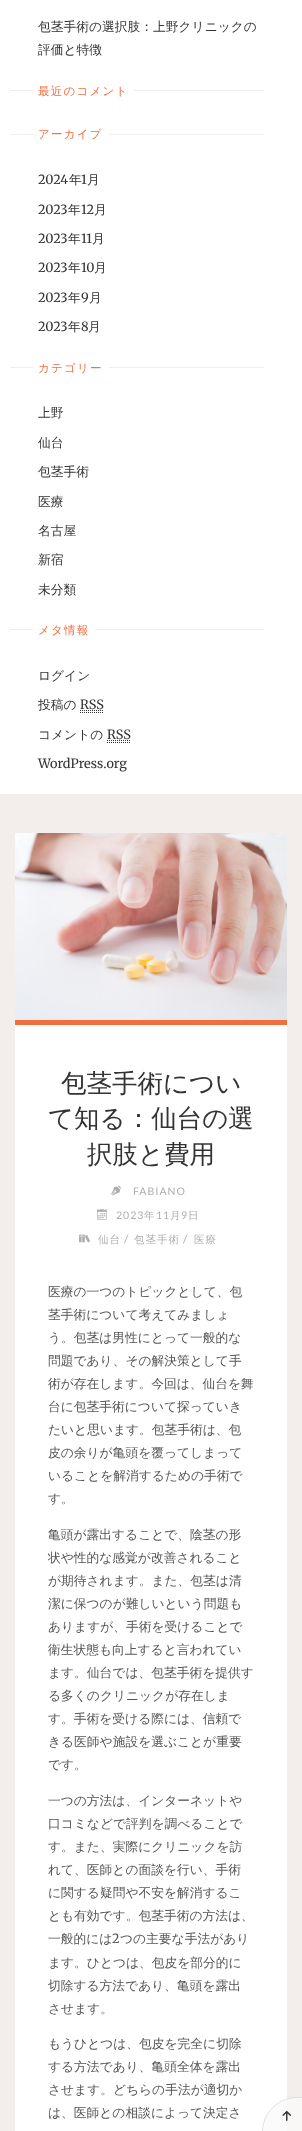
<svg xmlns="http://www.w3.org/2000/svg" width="302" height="2131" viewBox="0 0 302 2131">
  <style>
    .t1 { font: 500 12.75px WenQuanYi Zen Hei; fill: #333; }
    .t2 { font: 500 11.5px WenQuanYi Zen Hei; letter-spacing: 1.25px; fill: #f26e3f; }
    .t3 { font: 12.75px Merriweather; fill: #333; }
    .t4 { font: 500 25.5px WenQuanYi Zen Hei; fill: #333; }
    .t5 { font: 10.5px Lato; letter-spacing: 1px; fill: #aeaeae; }
    .t6 { font: 500 10.5px WenQuanYi Zen Hei; letter-spacing: 1px; fill: #aeaeae; }
    .t7 { font: 11.5px Lato; letter-spacing: 1px; fill: #aeaeae; }
    .t8 { font: 500 12.75px WenQuanYi Zen Hei; fill: #555; }
    .t9 { font: 12.75px Merriweather; fill: #555; }
  </style>
  <rect width="100%" height="100%" fill="#f3eeeb"/>
  <rect x="0" y="0" width="302" height="794" fill="#fff"/>
  <text x="38" y="31" class="t1">包茎手術の選択肢：上野クリニックの</text>
  <text x="38" y="54" class="t1">評価と特徴</text>
  <rect x="10" y="90" width="254" height="1" fill="#eee"/>
  <rect x="33" y="90" width="101" height="1" fill="#fff"/>
  <text x="38" y="95" class="t2">最近のコメント</text>
  <rect x="10" y="134" width="254" height="1" fill="#eee"/>
  <rect x="33" y="134" width="76" height="1" fill="#fff"/>
  <text x="38" y="138" class="t2">アーカイブ</text>
  <text x="38" y="184" class="t3">2024</text>
  <text x="69" y="184" class="t1">年</text>
  <text x="81" y="184" class="t3">1</text>
  <text x="87" y="184" class="t1">月</text>
  <text x="38" y="214" class="t3">2023</text>
  <text x="68" y="214" class="t1">年</text>
  <text x="81" y="214" class="t3">12</text>
  <text x="94" y="214" class="t1">月</text>
  <text x="38" y="243" class="t3">2023</text>
  <text x="68" y="243" class="t1">年</text>
  <text x="81" y="243" class="t3">11</text>
  <text x="92" y="243" class="t1">月</text>
  <text x="38" y="272" class="t3">2023</text>
  <text x="68" y="272" class="t1">年</text>
  <text x="81" y="272" class="t3">10</text>
  <text x="94" y="272" class="t1">月</text>
  <text x="38" y="302" class="t3">2023</text>
  <text x="68" y="302" class="t1">年</text>
  <text x="81" y="302" class="t3">9</text>
  <text x="89" y="302" class="t1">月</text>
  <text x="38" y="331" class="t3">2023</text>
  <text x="68" y="331" class="t1">年</text>
  <text x="81" y="331" class="t3">8</text>
  <text x="88" y="331" class="t1">月</text>
  <rect x="10" y="367" width="254" height="1" fill="#eee"/>
  <rect x="33" y="367" width="76" height="1" fill="#fff"/>
  <text x="38" y="372" class="t2">カテゴリー</text>
  <text x="38" y="417" class="t1">上野</text>
  <text x="38" y="447" class="t1">仙台</text>
  <text x="38" y="476" class="t1">包茎手術</text>
  <text x="38" y="506" class="t1">医療</text>
  <text x="38" y="535" class="t1">名古屋</text>
  <text x="38" y="564" class="t1">新宿</text>
  <text x="38" y="594" class="t1">未分類</text>
  <rect x="10" y="629" width="254" height="1" fill="#eee"/>
  <rect x="33" y="629" width="62" height="1" fill="#fff"/>
  <text x="38" y="634" class="t2">メタ情報</text>
  <text x="38" y="680" class="t1">ログイン</text>
  <text x="38" y="709" class="t1">投稿の</text>
  <text x="80" y="709" class="t3">RSS</text>
  <path d="M80 712.5H104M80 710.5H104" fill="none" stroke="#333" stroke-dasharray="1 1"/>
  <text x="38" y="739" class="t1">コメントの</text>
  <text x="107" y="739" class="t3">RSS</text>
  <path d="M107 742.5H131M107 740.5H131" fill="none" stroke="#333" stroke-dasharray="1 1"/>
  <text x="38" y="768" class="t3">WordPress.org</text>
  <rect x="15" y="1025" width="272" height="1106" fill="#fff"/>
  <image x="15" y="833" width="272" height="187" href="images/1.png"/>
  <rect x="15" y="1020" width="272" height="5" fill="#f26e3f"/>
  <text x="61" y="1092" class="t4">包茎手術につい</text>
  <text x="48" y="1127" class="t4">て知る：仙台の選</text>
  <text x="87" y="1163" class="t4">択肢と費用</text>
  <image x="111" y="1185" width="11" height="11" href="images/2.png"/>
  <text x="133" y="1195" class="t5">FABIANO</text>
  <image x="97" y="1209" width="10" height="11" href="images/3.png"/>
  <text x="116" y="1219" class="t5">2023</text>
  <text x="144" y="1219" class="t6">年</text>
  <text x="156" y="1219" class="t5">11</text>
  <text x="170" y="1219" class="t6">月</text>
  <text x="181" y="1219" class="t5">9</text>
  <text x="188" y="1219" class="t6">日</text>
  <image x="79" y="1234" width="11" height="9" href="images/4.png"/>
  <text x="98" y="1243" class="t6">仙台</text>
  <text x="124" y="1243" class="t7">/</text>
  <text x="134" y="1243" class="t6">包茎手術</text>
  <text x="183" y="1243" class="t7">/</text>
  <text x="194" y="1243" class="t6">医療</text>
  <text x="48" y="1296" class="t8">医療の一つのトピックとして、包</text>
  <text x="48" y="1319" class="t8">茎手術について考えてみましょ</text>
  <text x="48" y="1342" class="t8">う。包茎は男性にとって一般的な</text>
  <text x="48" y="1365" class="t8">問題であり、その解決策として手</text>
  <text x="48" y="1388" class="t8">術が存在します。今回は、仙台を舞</text>
  <text x="48" y="1411" class="t8">台に包茎手術について探っていき</text>
  <text x="48" y="1434" class="t8">たいと思います。包茎手術は、包</text>
  <text x="48" y="1457" class="t8">皮の余りが亀頭を覆ってしまって</text>
  <text x="48" y="1480" class="t8">いることを解消するための手術で</text>
  <text x="48" y="1503" class="t8">す。</text>
  <text x="48" y="1539" class="t8">亀頭が露出することで、陰茎の形</text>
  <text x="48" y="1562" class="t8">状や性的な感覚が改善されること</text>
  <text x="48" y="1585" class="t8">が期待されます。また、包茎は清</text>
  <text x="48" y="1608" class="t8">潔に保つのが難しいという問題も</text>
  <text x="48" y="1631" class="t8">ありますが、手術を受けることで</text>
  <text x="48" y="1654" class="t8">衛生状態も向上すると言われてい</text>
  <text x="48" y="1677" class="t8">ます。仙台では、包茎手術を提供す</text>
  <text x="48" y="1700" class="t8">る多くのクリニックが存在しま</text>
  <text x="48" y="1723" class="t8">す。手術を受ける際には、信頼で</text>
  <text x="48" y="1746" class="t8">きる医師や施設を選ぶことが重要</text>
  <text x="48" y="1769" class="t8">です。</text>
  <text x="48" y="1805" class="t8">一つの方法は、インターネットや</text>
  <text x="48" y="1828" class="t8">口コミなどで評判を調べることで</text>
  <text x="48" y="1851" class="t8">す。また、実際にクリニックを訪</text>
  <text x="48" y="1874" class="t8">れて、医師との面談を行い、手術</text>
  <text x="48" y="1897" class="t8">に関する疑問や不安を解消するこ</text>
  <text x="48" y="1920" class="t8">とも有効です。包茎手術の方法は、</text>
  <text x="48" y="1943" class="t8">一般的には</text>
  <text x="112" y="1943" class="t9">2</text>
  <text x="120" y="1943" class="t8">つの主要な手法があり</text>
  <text x="48" y="1967" class="t8">ます。ひとつは、包皮を部分的に</text>
  <text x="48" y="1990" class="t8">切除する方法であり、亀頭を露出</text>
  <text x="48" y="2013" class="t8">させます。</text>
  <text x="48" y="2048" class="t8">もうひとつは、包皮を完全に切除</text>
  <text x="48" y="2071" class="t8">する方法であり、亀頭全体を露出</text>
  <text x="48" y="2094" class="t8">させます。どちらの手法が適切か</text>
  <text x="48" y="2117" class="t8">は、医師との相談によって決定さ</text>
  <path d="M297 2097H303V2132H262C262 2112.5 277.5 2097 297 2097Z" fill="#fafafacc"/>
  <path d="M297 2097.5H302.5V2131.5H262.5V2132C262.5 2113 278 2097.5 297 2097.5Z" fill="none" stroke="#0000001a"/>
  <image x="282" y="2111" width="9" height="10" href="images/5.png"/>
</svg>
